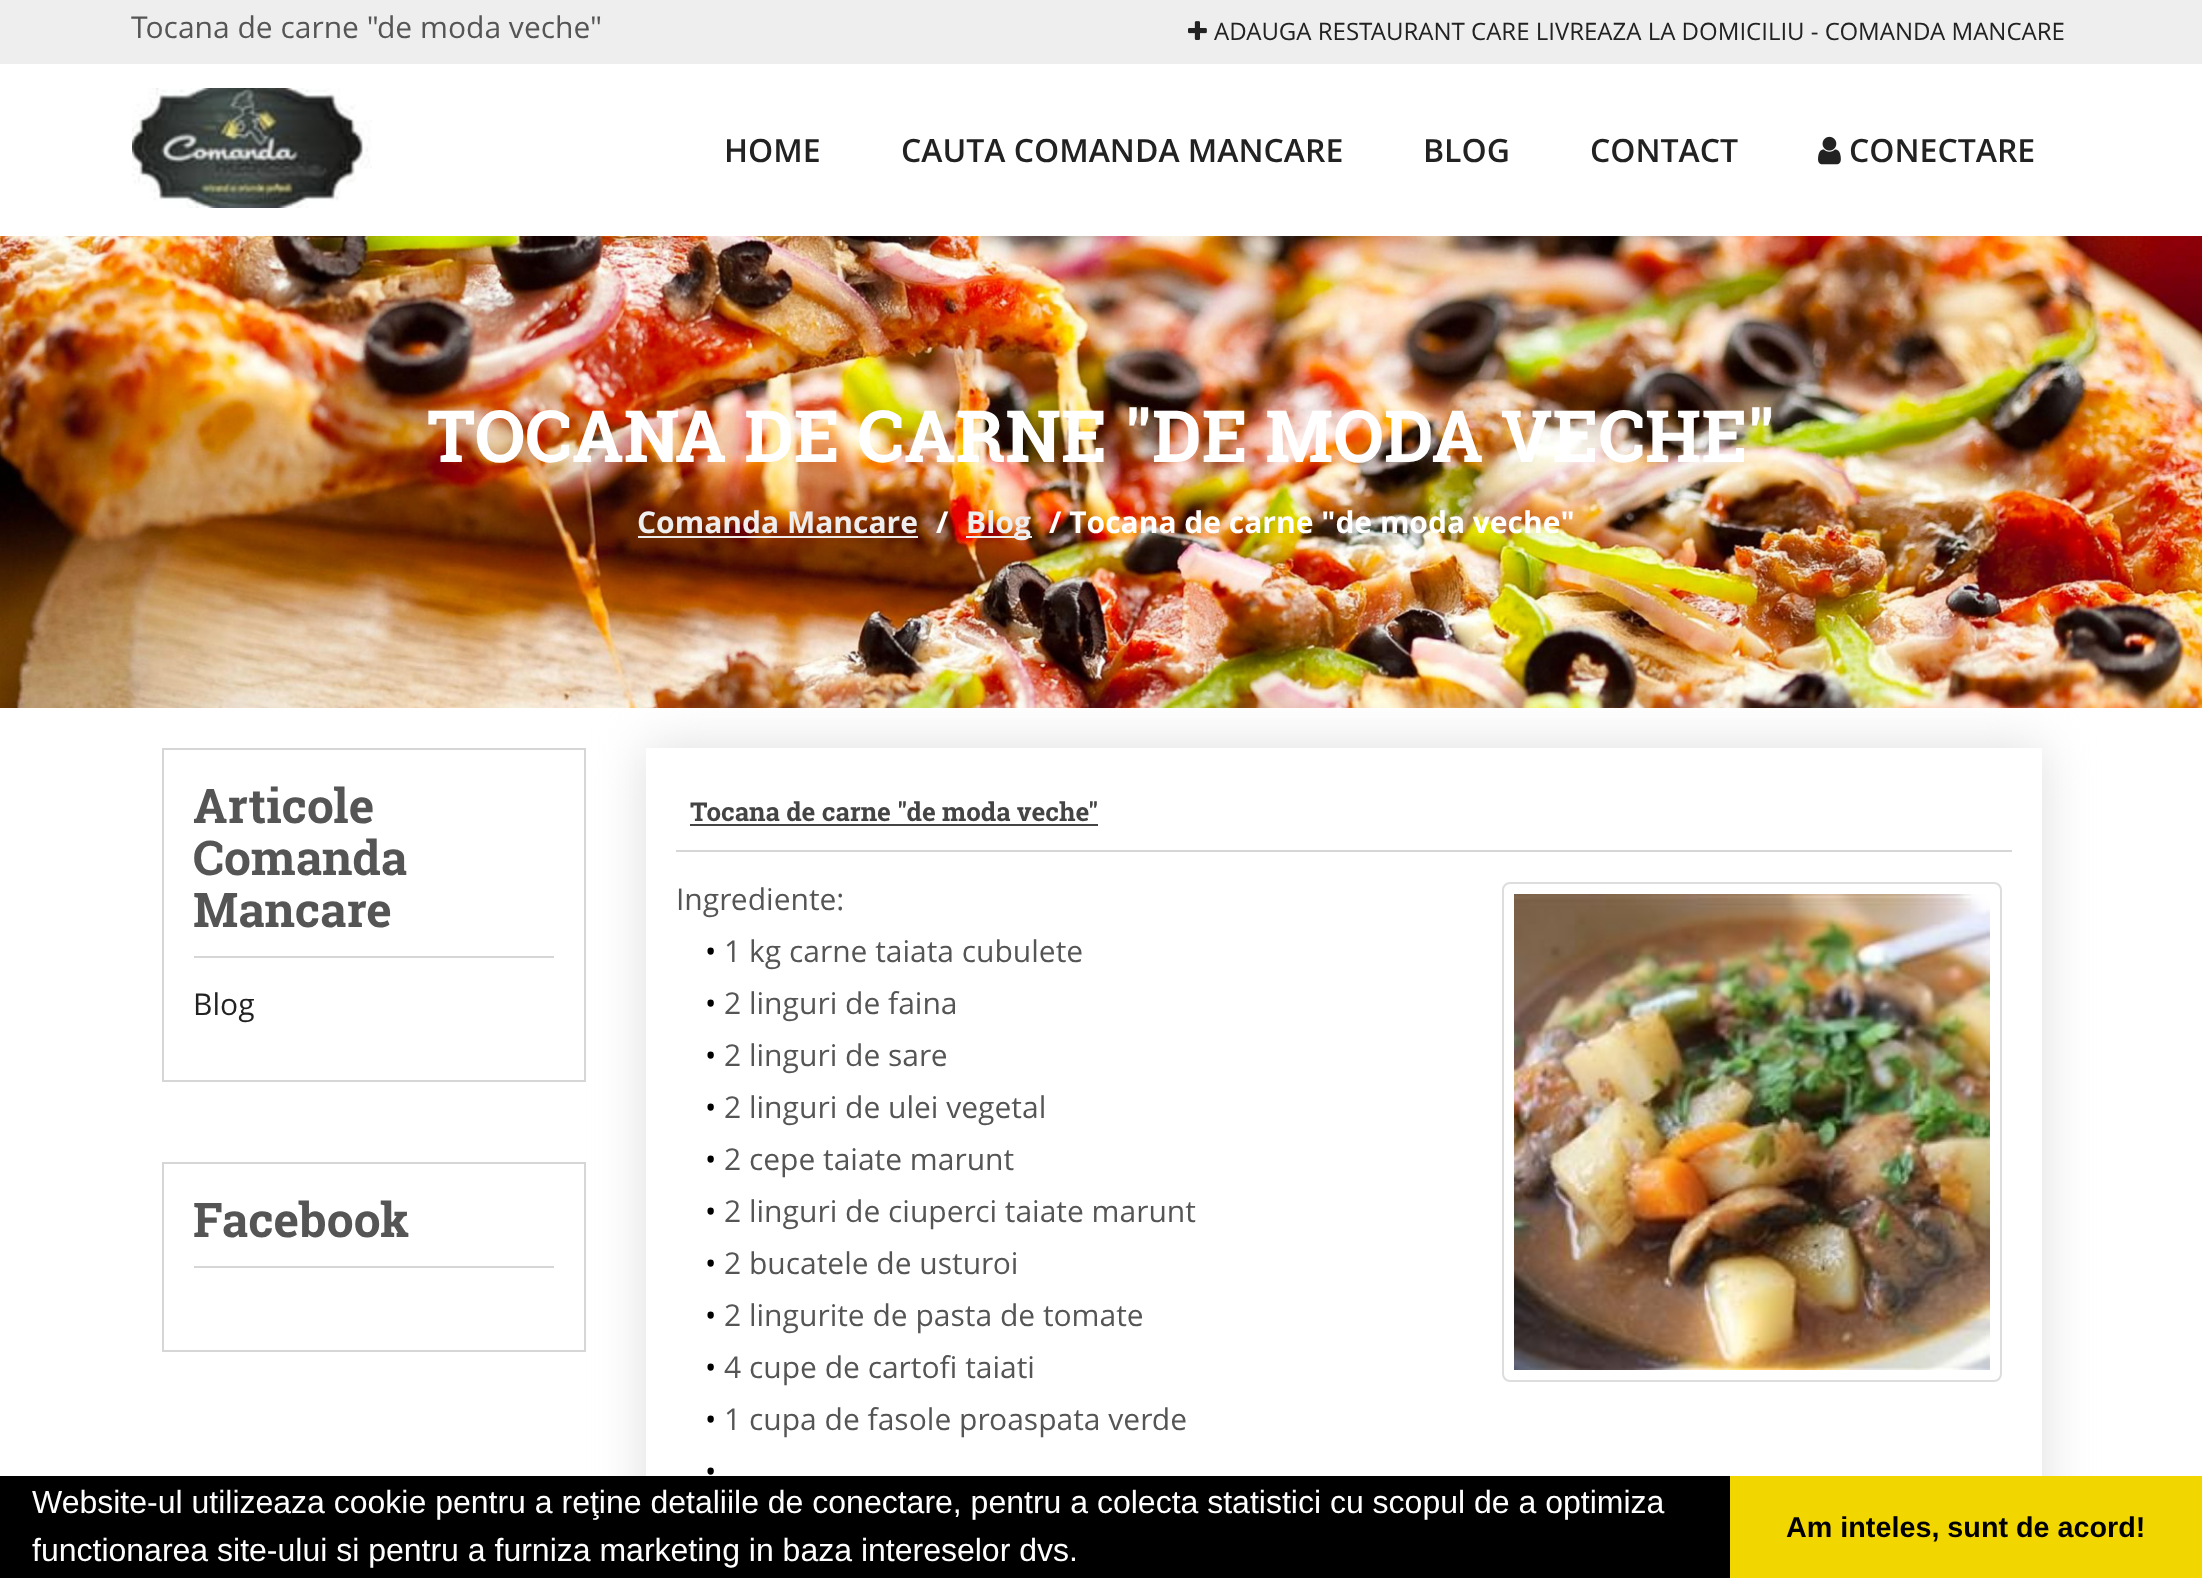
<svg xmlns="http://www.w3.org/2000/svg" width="2202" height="1578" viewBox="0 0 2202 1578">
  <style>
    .t1 { font: 30px Open Sans; fill: #555; }
    .t2 { font: 24px Open Sans; fill: #222; }
    .t3 { font: 600 32px Open Sans; fill: #222; }
    .t4 { font: bold 72px Roboto Slab; fill: #fff; }
    .t5 { font: bold 30px Open Sans; fill: #eee; }
    .t6 { font: bold 30px Open Sans; fill: #fff; }
    .t7 { font: bold 48px Roboto Slab; fill: #555; }
    .t8 { font: 30px Open Sans; fill: #222; }
    .t9 { font: bold 26px Roboto Slab; fill: #444; }
    .t10 { font: 30px Open Sans; fill: #000; }
    .t11 { font: 32px Liberation Sans; fill: #fff; }
    .t12 { font: bold 28.75px Liberation Sans; fill: #000; }
  </style>
  <defs>
    <clipPath id="clip1"><path d="M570 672H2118V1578H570ZM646 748H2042V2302H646Z" clip-rule="evenodd"/></clipPath>
  </defs>
  <rect width="100%" height="100%" fill="#fff"/>
  <rect x="0" y="0" width="2202" height="64" fill="#eee"/>
  <text x="131" y="38" class="t1">Tocana de carne "de moda veche"</text>
  <image x="1188" y="21" width="19" height="19" href="images/1.png"/>
  <text x="1214" y="40" class="t2">ADAUGA RESTAURANT CARE LIVREAZA LA DOMICILIU - COMANDA MANCARE</text>
  <image x="132" y="88" width="240" height="120" href="images/2.png"/>
  <text x="724" y="162" class="t3">HOME</text>
  <text x="901" y="162" class="t3">CAUTA COMANDA MANCARE</text>
  <text x="1423" y="162" class="t3">BLOG</text>
  <text x="1590" y="162" class="t3">CONTACT</text>
  <image x="1818" y="136" width="23" height="29" href="images/3.png"/>
  <text x="1849" y="162" class="t3">CONECTARE</text>
  <image x="0" y="236" width="2202" height="472" href="images/4.png"/>
  <text x="427" y="462" class="t4">TOCANA DE CARNE "DE MODA VECHE"</text>
  <text x="637" y="533" class="t5">Comanda Mancare</text>
  <rect x="638" y="536" width="280" height="2" fill="#eee"/>
  <text x="936" y="533" class="t6">/</text>
  <rect x="966" y="536" width="66" height="2" fill="#eee"/>
  <text x="966" y="533" class="t5">Blog</text>
  <text x="1049" y="533" class="t6">/ Tocana de carne "de moda veche"</text>
  <rect x="163" y="749" width="422" height="332" fill="none" stroke="#d6d6d6" stroke-width="2"/>
  <rect x="194" y="956" width="360" height="2" fill="#d6d6d6"/>
  <text x="193" y="823" class="t7">Articole</text>
  <text x="193" y="875" class="t7">Comanda</text>
  <text x="193" y="927" class="t7">Mancare</text>
  <text x="193" y="1015" class="t8">Blog</text>
  <rect x="163" y="1163" width="422" height="188" fill="none" stroke="#d6d6d6" stroke-width="2"/>
  <rect x="194" y="1266" width="360" height="2" fill="#d6d6d6"/>
  <text x="193" y="1237" class="t7">Facebook</text>
  <g clip-path="url(#clip1)">
    <rect x="646" y="748" width="1396" height="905" fill="#ddd" filter="blur(25px)"/>
  </g>
  <rect x="676" y="850" width="1336" height="2" fill="#d6d6d6"/>
  <text x="690" y="821" class="t9">Tocana de carne "de moda veche"</text>
  <rect x="690" y="824" width="408" height="2" fill="#444"/>
  <text x="676" y="910" class="t1">Ingrediente:</text>
  <rect x="1503" y="883" width="498" height="498" rx="7" fill="none" stroke="#ddd" stroke-width="2"/>
  <image x="1514" y="894" width="476" height="476" href="images/5.png"/>
  <text x="705" y="962" class="t10">•</text>
  <text x="724" y="962" class="t1">1 kg carne taiata cubulete</text>
  <text x="705" y="1014" class="t10">•</text>
  <text x="724" y="1014" class="t1">2 linguri de faina</text>
  <text x="705" y="1066" class="t10">•</text>
  <text x="724" y="1066" class="t1">2 linguri de sare</text>
  <text x="705" y="1118" class="t10">•</text>
  <text x="724" y="1118" class="t1">2 linguri de ulei vegetal</text>
  <text x="705" y="1170" class="t10">•</text>
  <text x="724" y="1170" class="t1">2 cepe taiate marunt</text>
  <text x="705" y="1222" class="t10">•</text>
  <text x="724" y="1222" class="t1">2 linguri de ciuperci taiate marunt</text>
  <text x="705" y="1274" class="t10">•</text>
  <text x="724" y="1274" class="t1">2 bucatele de usturoi</text>
  <text x="705" y="1326" class="t10">•</text>
  <text x="724" y="1326" class="t1">2 lingurite de pasta de tomate</text>
  <text x="705" y="1378" class="t10">•</text>
  <text x="724" y="1378" class="t1">4 cupe de cartofi taiati</text>
  <text x="705" y="1430" class="t10">•</text>
  <text x="724" y="1430" class="t1">1 cupa de fasole proaspata verde</text>
  <text x="705" y="1482" class="t10">•</text>
  <rect x="0" y="1476" width="1730" height="102" fill="#000"/>
  <text x="32" y="1513" class="t11">Website-ul utilizeaza cookie pentru a reţine detaliile de conectare, pentru a colecta statistici cu scopul de a optimiza</text>
  <text x="32" y="1561" class="t11">functionarea site-ului si pentru a furniza marketing in baza intereselor dvs.</text>
  <rect x="1730" y="1476" width="472" height="102" fill="#f1d600"/>
  <text x="1786" y="1537" class="t12">Am inteles, sunt de acord!</text>
</svg>
